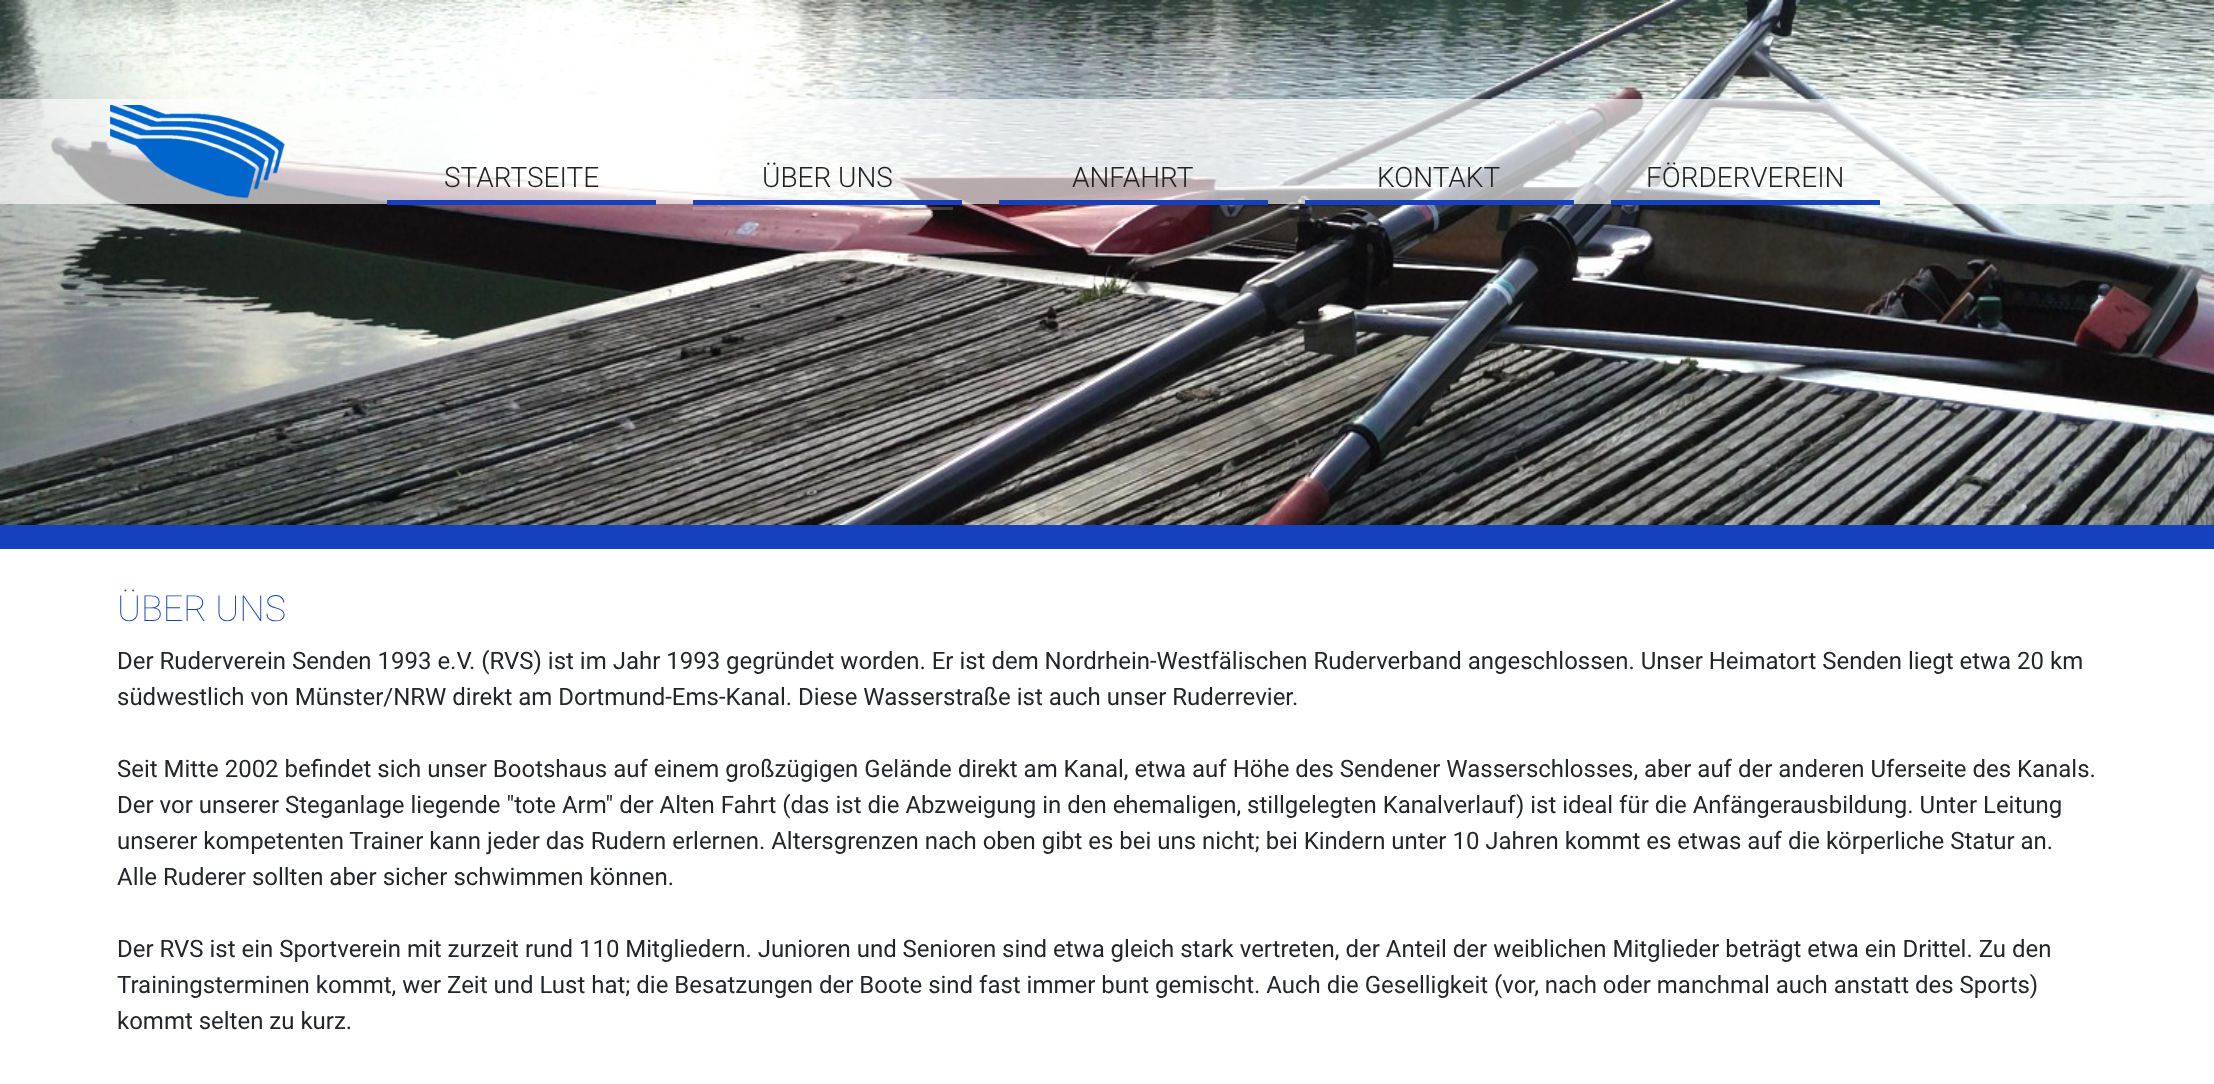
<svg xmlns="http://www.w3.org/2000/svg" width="2214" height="1084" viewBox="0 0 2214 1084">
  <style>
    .t1 { font: 300 28px Roboto; fill: #212121; }
    .t2 { font: 100 36px Roboto; fill: #1541bf; }
    .t3 { font: 24px Roboto; fill: #22262a; }
  </style>
  <rect width="100%" height="100%" fill="#fff"/>
  <rect x="0" y="525" width="2214" height="24" fill="#1541bf"/>
  <image x="0" y="0" width="2214" height="525" href="images/1.png"/>
  <rect x="0" y="99" width="2214" height="105" fill="#ffffffa6"/>
  <image x="110" y="105" width="175" height="94" href="images/2.png"/>
  <rect x="387" y="200" width="269" height="5" fill="#1541bf"/>
  <text x="444" y="187" class="t1">STARTSEITE</text>
  <rect x="693" y="200" width="269" height="5" fill="#1541bf"/>
  <text x="762" y="187" class="t1">ÜBER UNS</text>
  <rect x="693" y="207" width="260" height="3" fill="#ffffff33"/>
  <rect x="999" y="200" width="269" height="5" fill="#1541bf"/>
  <text x="1072" y="187" class="t1">ANFAHRT</text>
  <rect x="1305" y="200" width="269" height="5" fill="#1541bf"/>
  <text x="1377" y="187" class="t1">KONTAKT</text>
  <rect x="1611" y="200" width="269" height="5" fill="#1541bf"/>
  <text x="1646" y="187" class="t1">FÖRDERVEREIN</text>
  <text x="117" y="621" class="t2">ÜBER UNS</text>
  <text x="117" y="669" class="t3">Der Ruderverein Senden 1993 e.V. (RVS) ist im Jahr 1993 gegründet worden. Er ist dem Nordrhein-Westfälischen Ruderverband angeschlossen. Unser Heimatort Senden liegt etwa 20 km</text>
  <text x="117" y="705" class="t3">südwestlich von Münster/NRW direkt am Dortmund-Ems-Kanal. Diese Wasserstraße ist auch unser Ruderrevier.</text>
  <text x="117" y="777" class="t3">Seit Mitte 2002 befindet sich unser Bootshaus auf einem großzügigen Gelände direkt am Kanal, etwa auf Höhe des Sendener Wasserschlosses, aber auf der anderen Uferseite des Kanals.</text>
  <text x="117" y="813" class="t3">Der vor unserer Steganlage liegende "tote Arm" der Alten Fahrt (das ist die Abzweigung in den ehemaligen, stillgelegten Kanalverlauf) ist ideal für die Anfängerausbildung. Unter Leitung</text>
  <text x="117" y="849" class="t3">unserer kompetenten Trainer kann jeder das Rudern erlernen. Altersgrenzen nach oben gibt es bei uns nicht; bei Kindern unter 10 Jahren kommt es etwas auf die körperliche Statur an.</text>
  <text x="117" y="885" class="t3">Alle Ruderer sollten aber sicher schwimmen können.</text>
  <text x="117" y="957" class="t3">Der RVS ist ein Sportverein mit zurzeit rund 110 Mitgliedern. Junioren und Senioren sind etwa gleich stark vertreten, der Anteil der weiblichen Mitglieder beträgt etwa ein Drittel. Zu den</text>
  <text x="117" y="993" class="t3">Trainingsterminen kommt, wer Zeit und Lust hat; die Besatzungen der Boote sind fast immer bunt gemischt. Auch die Geselligkeit (vor, nach oder manchmal auch anstatt des Sports)</text>
  <text x="117" y="1029" class="t3">kommt selten zu kurz.</text>
</svg>
